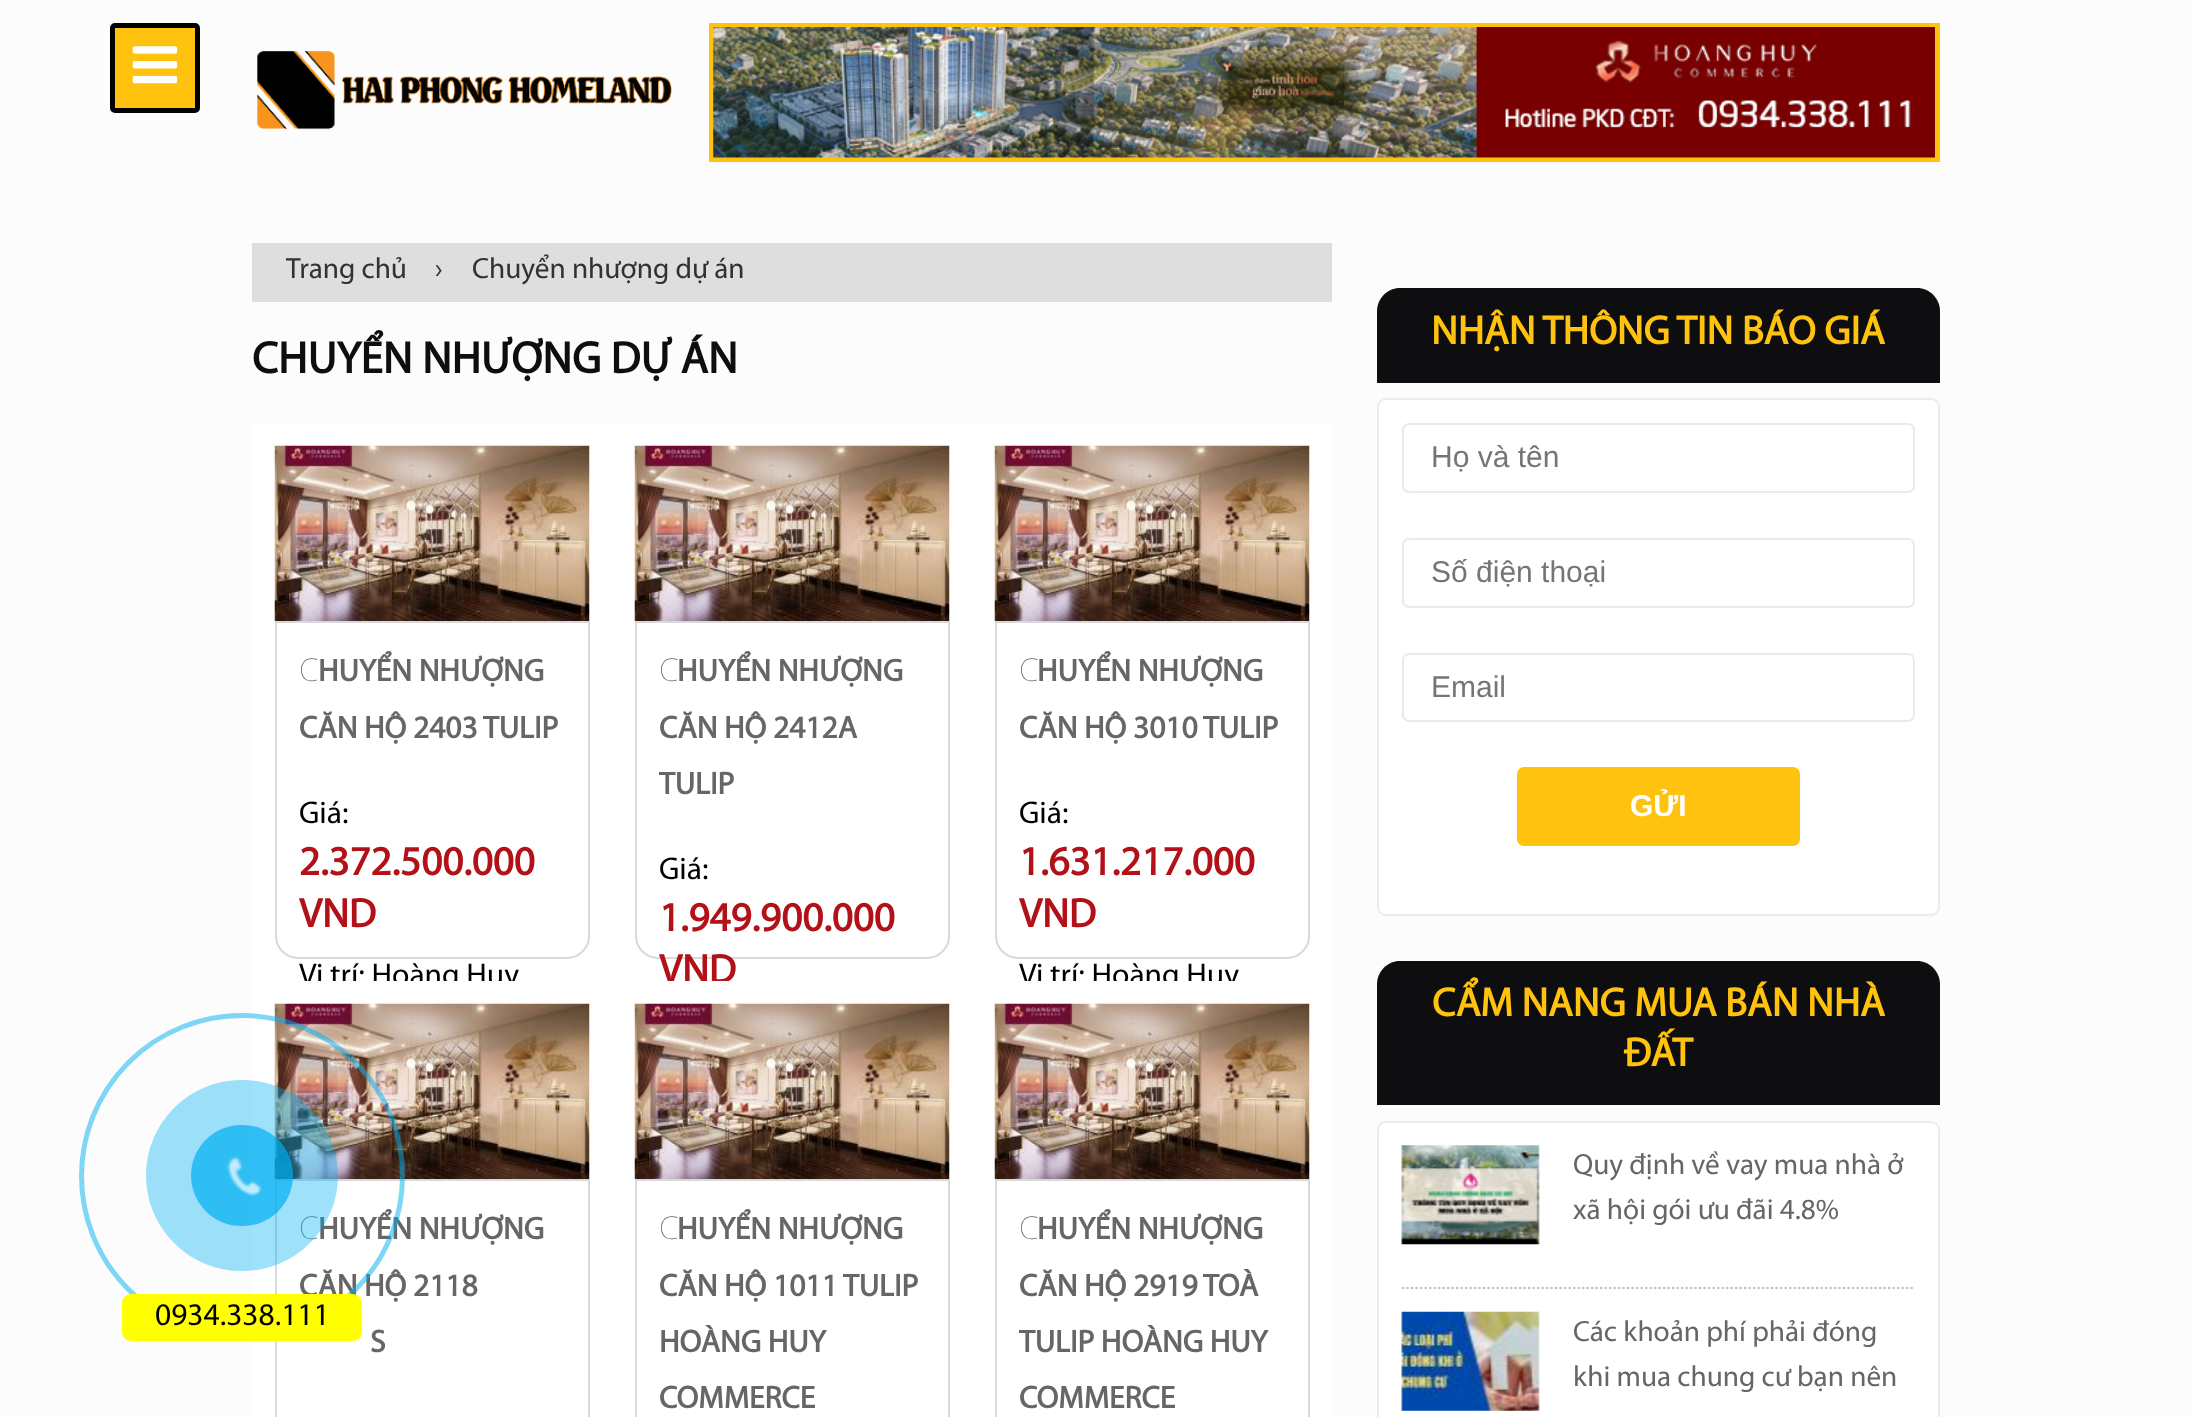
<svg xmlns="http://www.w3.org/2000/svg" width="2191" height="1417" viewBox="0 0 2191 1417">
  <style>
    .t1 { font: 100 31.5px Noto Sans; fill: #666; }
    .t2 { font: bold 31.5px Myriad; fill: #666; }
    .t3 { font: 31.5px Myriad; fill: #000; }
    .t4 { font: 29.25px Myriad; fill: #333131; }
    .t5 { font: bold 45px Myriad; fill: #0e0d0f; }
    .t6 { font: bold 41px Myriad; fill: #b21117; }
    .t7 { font: bold 40.5px Myriad; fill: #ffc20e; }
    .t8 { font: 30px Liberation Sans; fill: #757575; }
    .t9 { font: bold 30px Liberation Sans; fill: #fff; }
    .t10 { font: 29.25px Myriad; fill: #666; }
  </style>
  <defs>
    <clipPath id="clip1"><rect x="299" y="956" width="266" height="25"/></clipPath>
    <clipPath id="clip2"><rect x="612" y="423" width="360" height="558"/></clipPath>
    <clipPath id="clip3"><rect x="1019" y="956" width="266" height="25"/></clipPath>
  </defs>
  <rect width="100%" height="100%" fill="#fcfcfc"/>
  <rect x="112.5" y="25.5" width="85" height="85" rx="2.5" fill="#ffc20e" stroke="#000" stroke-width="5"/>
  <image x="132" y="46" width="46" height="38" href="images/1.png"/>
  <image x="257" y="51" width="415" height="79" href="images/2.png"/>
  <rect x="711.5" y="25.5" width="1226" height="134" fill="none" stroke="#ffc20e" stroke-width="5"/>
  <image x="713" y="27" width="1222" height="131" href="images/3.png"/>
  <rect x="252" y="423" width="1080" height="994" fill="#fff"/>
  <image x="274" y="1003" width="316" height="176" href="images/5.png"/>
  <rect x="276" y="1180" width="313" height="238" fill="none" stroke="#d9d9d9" stroke-width="2"/>
  <text x="299" y="1239" class="t1">C</text>
  <text x="318" y="1239" class="t2">HUYỂN NHƯỢNG</text>
  <text x="299" y="1296" class="t2">CĂN HỘ 2118</text>
  <text x="370" y="1352" class="t2">S</text>
  <circle cx="242" cy="1176" r="160.5" fill="none" stroke="#00aff280" stroke-width="5"/>
  <rect x="146" y="1080" width="192" height="191" rx="95.5" fill="#00aff261"/>
  <rect x="191" y="1125" width="102" height="101" rx="50.5" fill="#00aff2b3"/>
  <image x="226" y="1156" width="36" height="41" href="images/4.png"/>
  <rect x="122" y="1294" width="240" height="47" rx="9" fill="#ff0"/>
  <text x="155" y="1325" class="t3">0934.338.111</text>
  <rect x="252" y="243" width="1080" height="59" fill="#dedede"/>
  <text x="286" y="278" class="t4">Trang chủ</text>
  <text x="435" y="278" class="t4">›</text>
  <text x="472" y="278" class="t4">Chuyển nhượng dự án</text>
  <text x="252" y="373" class="t5">CHUYỂN NHƯỢNG DỰ ÁN</text>
  <image x="274" y="445" width="316" height="176" href="images/5.png"/>
  <path d="M276 622H589V936C589 948 579 958 567 958H298C286 958 276 948 276 936Z" fill="none" stroke="#d9d9d9" stroke-width="2"/>
  <text x="299" y="681" class="t1">C</text>
  <text x="318" y="681" class="t2">HUYỂN NHƯỢNG</text>
  <text x="299" y="738" class="t2">CĂN HỘ 2403 TULIP</text>
  <text x="299" y="823" class="t3">Giá:</text>
  <text x="299" y="875" class="t6">2.372.500.000</text>
  <text x="299" y="927" class="t6">VND</text>
  <g clip-path="url(#clip1)">
    <text x="299" y="985" class="t3">Vị trí: Hoàng Huy</text>
  </g>
  <image x="634" y="445" width="316" height="176" href="images/6.png"/>
  <path d="M636 622H949V936C949 948 939 958 927 958H658C646 958 636 948 636 936Z" fill="none" stroke="#d9d9d9" stroke-width="2"/>
  <text x="659" y="681" class="t1">C</text>
  <text x="677" y="681" class="t2">HUYỂN NHƯỢNG</text>
  <text x="659" y="738" class="t2">CĂN HỘ 2412A</text>
  <text x="659" y="794" class="t2">TULIP</text>
  <text x="659" y="879" class="t3">Giá:</text>
  <text x="659" y="931" class="t6">1.949.900.000</text>
  <g clip-path="url(#clip2)">
    <text x="659" y="983" class="t6">VND</text>
  </g>
  <image x="994" y="445" width="316" height="176" href="images/5.png"/>
  <path d="M996 622H1309V936C1309 948 1299 958 1287 958H1018C1006 958 996 948 996 936Z" fill="none" stroke="#d9d9d9" stroke-width="2"/>
  <text x="1019" y="681" class="t1">C</text>
  <text x="1037" y="681" class="t2">HUYỂN NHƯỢNG</text>
  <text x="1019" y="738" class="t2">CĂN HỘ 3010 TULIP</text>
  <text x="1019" y="823" class="t3">Giá:</text>
  <text x="1019" y="875" class="t6">1.631.217.000</text>
  <text x="1019" y="927" class="t6">VND</text>
  <g clip-path="url(#clip3)">
    <text x="1019" y="985" class="t3">Vị trí: Hoàng Huy</text>
  </g>
  <image x="634" y="1003" width="316" height="176" href="images/6.png"/>
  <rect x="636" y="1180" width="313" height="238" fill="none" stroke="#d9d9d9" stroke-width="2"/>
  <text x="659" y="1239" class="t1">C</text>
  <text x="677" y="1239" class="t2">HUYỂN NHƯỢNG</text>
  <text x="659" y="1296" class="t2">CĂN HỘ 1011 TULIP</text>
  <text x="659" y="1352" class="t2">HOÀNG HUY</text>
  <text x="659" y="1408" class="t2">COMMERCE</text>
  <image x="994" y="1003" width="316" height="176" href="images/5.png"/>
  <rect x="996" y="1180" width="313" height="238" fill="none" stroke="#d9d9d9" stroke-width="2"/>
  <text x="1019" y="1239" class="t1">C</text>
  <text x="1037" y="1239" class="t2">HUYỂN NHƯỢNG</text>
  <text x="1019" y="1296" class="t2">CĂN HỘ 2919 TOÀ</text>
  <text x="1019" y="1352" class="t2">TULIP HOÀNG HUY</text>
  <text x="1019" y="1408" class="t2">COMMERCE</text>
  <path d="M1400 288H1917C1929.5 288 1940 298.5 1940 311V383H1377V311C1377 298.5 1387.5 288 1400 288Z" fill="#0e0d0f"/>
  <text x="1431" y="344" class="t7">NHẬN THÔNG TIN BÁO GIÁ</text>
  <rect x="1378" y="399" width="561" height="516" rx="8" fill="#fff" stroke="#ececec" stroke-width="2"/>
  <rect x="1403" y="424" width="511" height="68" rx="6" fill="none" stroke="#ece9e9" stroke-width="2"/>
  <text x="1431" y="467" class="t8">Họ và tên</text>
  <rect x="1403" y="539" width="511" height="68" rx="6" fill="none" stroke="#ece9e9" stroke-width="2"/>
  <text x="1431" y="582" class="t8">Số điện thoại</text>
  <rect x="1403" y="654" width="511" height="67" rx="6" fill="none" stroke="#ece9e9" stroke-width="2"/>
  <text x="1431" y="697" class="t8">Email</text>
  <rect x="1517" y="767" width="283" height="79" rx="7" fill="#ffc20e"/>
  <text x="1630" y="816" class="t9">GỬI</text>
  <path d="M1400 961H1917C1929.5 961 1940 971.5 1940 984V1105H1377V984C1377 971.5 1387.5 961 1400 961Z" fill="#0e0d0f"/>
  <text x="1432" y="1016" class="t7">CẨM NANG MUA BÁN NHÀ</text>
  <text x="1624" y="1066" class="t7">ĐẤT</text>
  <rect x="1378" y="1122" width="561" height="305" rx="8" fill="#fff" stroke="#ececec" stroke-width="2"/>
  <path d="M1402 1288H1915" fill="none" stroke="#c0c0c0" stroke-width="2.2" stroke-dasharray="2.25 2.25"/>
  <image x="1401" y="1145" width="139" height="100" href="images/7.png"/>
  <text x="1573" y="1174" class="t10">Quy định về vay mua nhà ở</text>
  <text x="1573" y="1219" class="t10">xã hội gói ưu đãi 4.8%</text>
  <image x="1401" y="1311" width="139" height="100" href="images/8.png"/>
  <text x="1573" y="1341" class="t10">Các khoản phí phải đóng</text>
  <text x="1573" y="1386" class="t10">khi mua chung cư bạn nên</text>
</svg>
